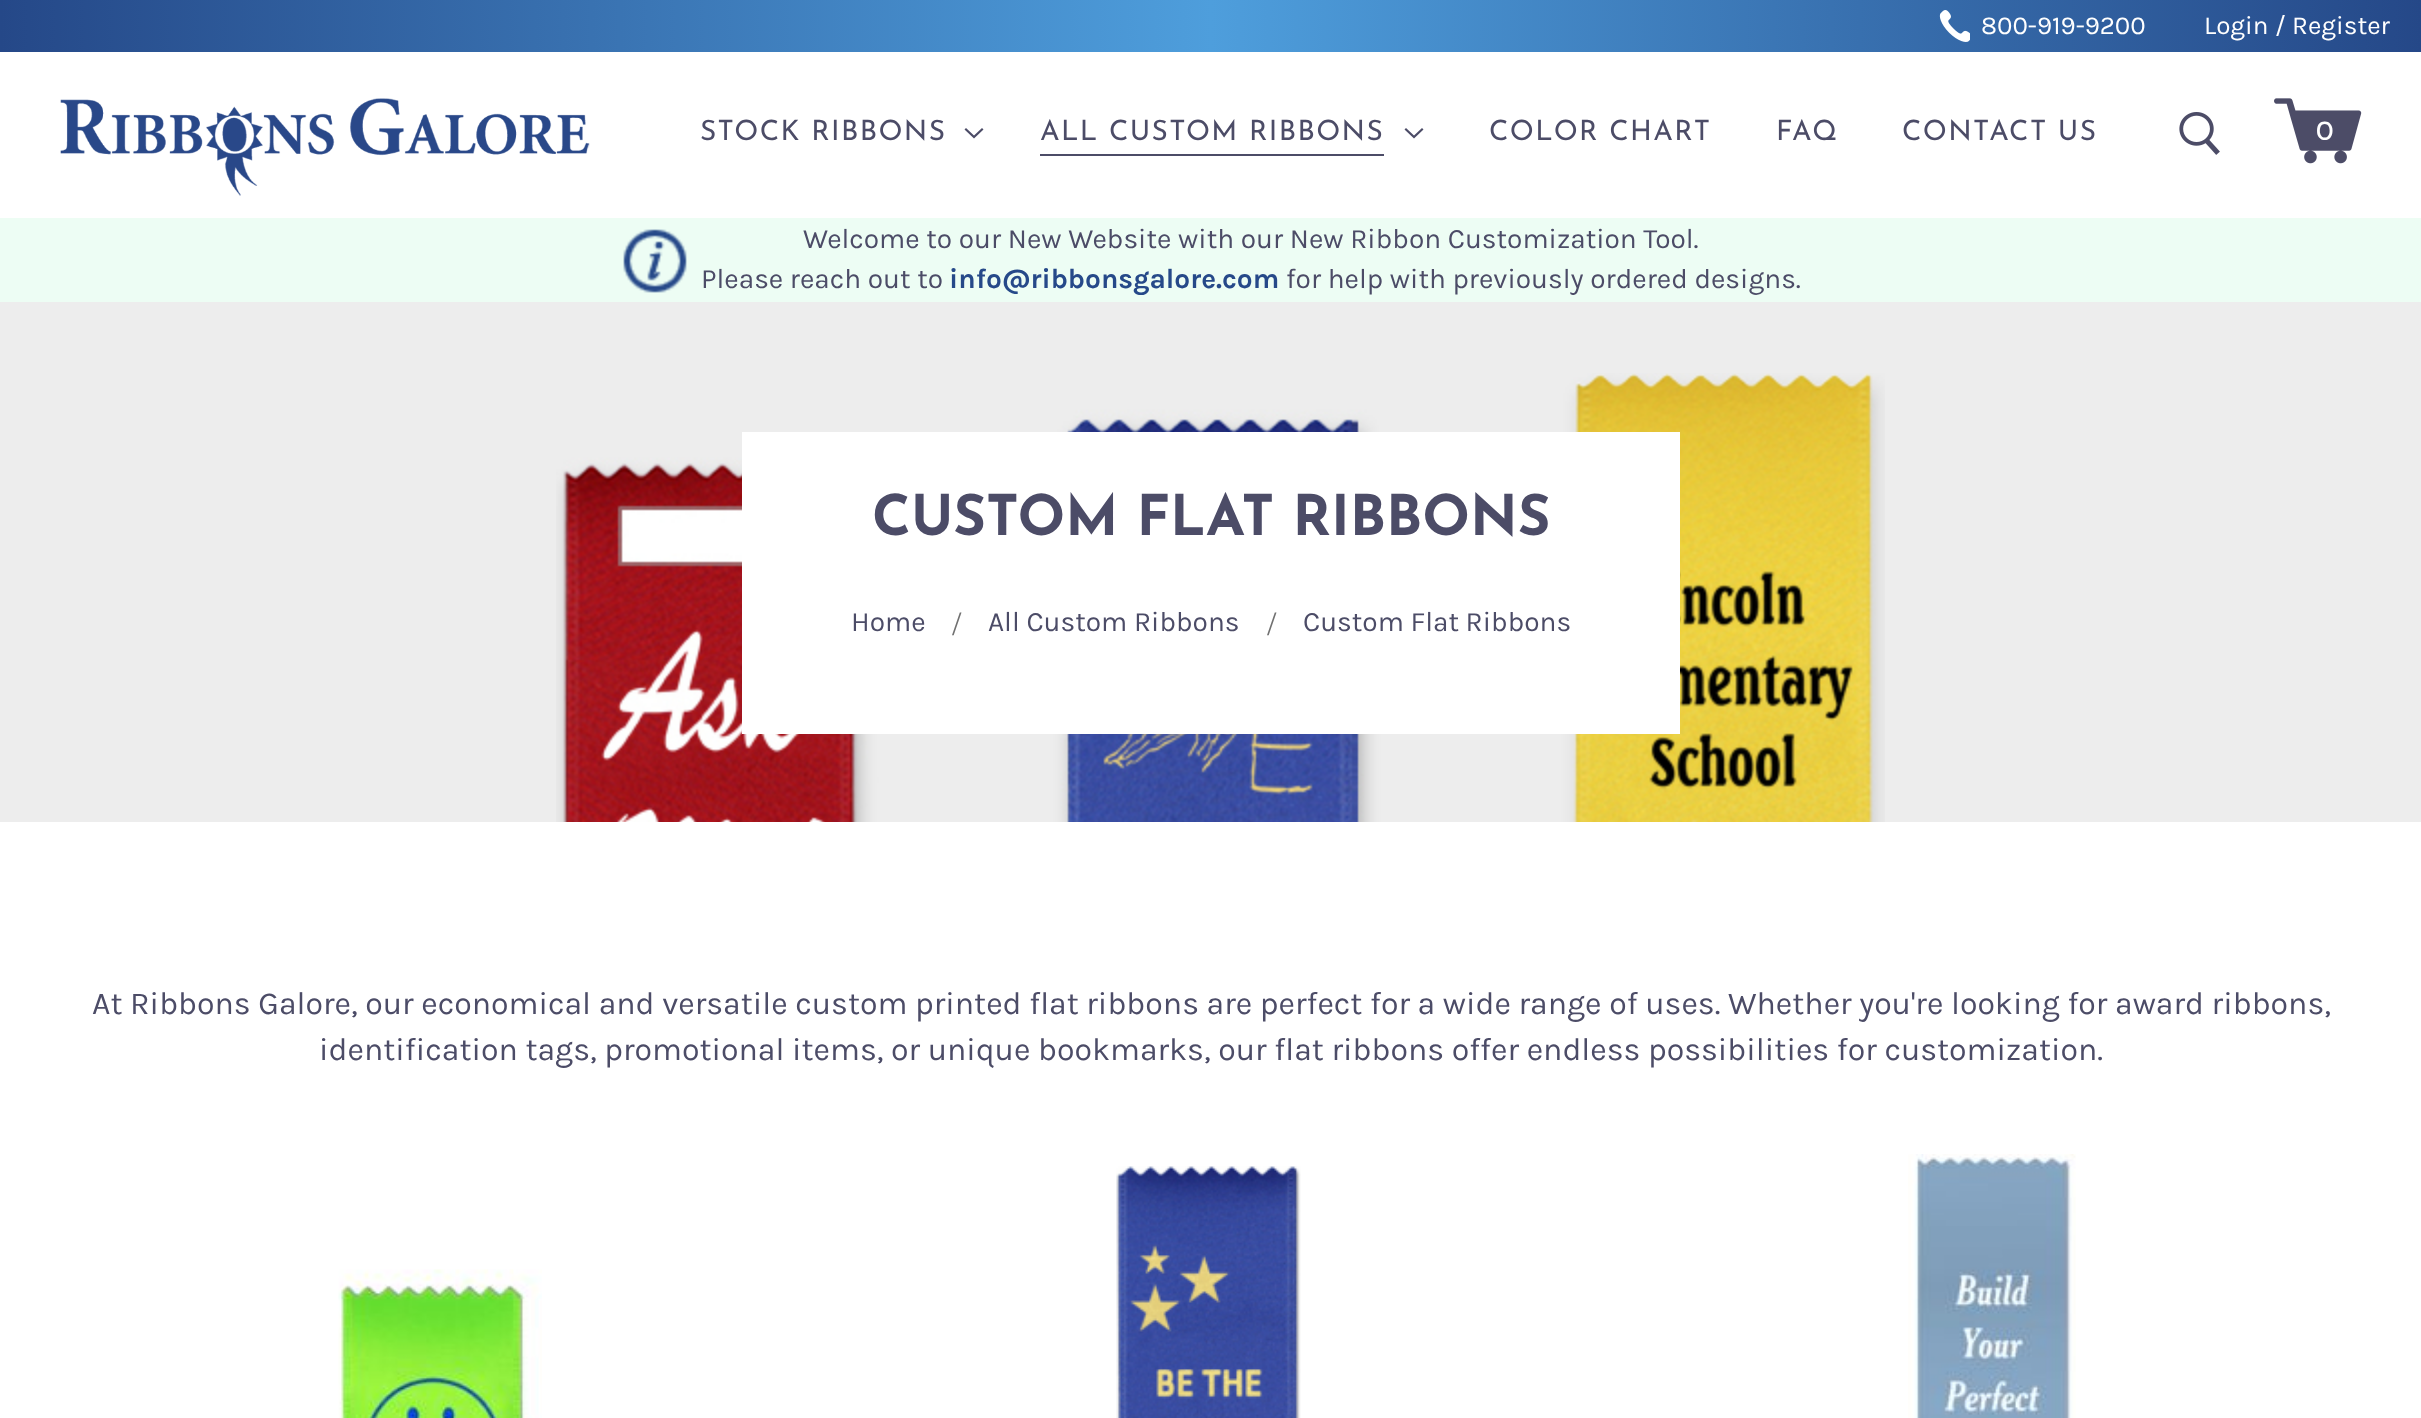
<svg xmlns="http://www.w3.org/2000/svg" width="2421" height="1418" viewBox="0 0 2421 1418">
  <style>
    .t1 { font: 26px Karla; fill: #fff; }
    .t2 { font: 28px Josefin Sans; letter-spacing: 1.4px; fill: #4c4c67; }
    .t3 { font: 28px Josefin Sans; fill: #fff; }
    .t4 { font: 28px Karla; fill: #4c4c67; }
    .t5 { font: bold 28px Karla; fill: #264989; }
    .t6 { font: bold 56px Josefin Sans; fill: #4c4c67; }
    .t7 { font: 34px Liberation Serif; fill: #707070; }
    .t8 { font: 32px Karla; fill: #4c4c67; }
  </style>
  <defs>
    <linearGradient id="g1" gradientUnits="userSpaceOnUse" x1="0" y1="26" x2="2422" y2="26"><stop offset="0" stop-color="#254888"/><stop offset="0.5" stop-color="#4e9edc"/><stop offset="1" stop-color="#254888"/></linearGradient>
  </defs>
  <rect width="100%" height="100%" fill="#fff"/>
  <rect x="0" y="0" width="2421" height="52" fill="url(#g1)"/>
  <image x="1939" y="10" width="31" height="32" href="images/1.png"/>
  <text x="1981" y="34" class="t1">800-919-9200</text>
  <text x="2204" y="34" class="t1">Login / Register</text>
  <image x="60" y="98" width="530" height="98" href="images/2.png"/>
  <text x="700" y="140" class="t2">STOCK RIBBONS</text>
  <path d="M974 135.5L966 128L964.5 129.5L974 138.5L983.5 129.5L982 128Z" fill="#4c4c67"/>
  <rect x="1040" y="154" width="344" height="2" fill="#4c4c67"/>
  <text x="1040" y="140" class="t2">ALL CUSTOM RIBBONS</text>
  <path d="M1414 135.5L1406 128L1404.5 129.5L1414 138.5L1423.5 129.5L1422 128Z" fill="#4c4c67"/>
  <text x="1489" y="140" class="t2">COLOR CHART</text>
  <text x="1776" y="140" class="t2">FAQ</text>
  <text x="1902" y="140" class="t2">CONTACT US</text>
  <image x="2179" y="112" width="41" height="43" href="images/3.png"/>
  <image x="2274" y="98" width="88" height="66" href="images/4.png"/>
  <text x="2316" y="140" class="t3">0</text>
  <rect x="0" y="218" width="2421" height="84" fill="#edfdf4"/>
  <image x="623" y="229" width="64" height="64" href="images/5.png"/>
  <text x="803" y="248" class="t4">Welcome to our New Website with our New Ribbon Customization Tool.</text>
  <text x="701" y="288" class="t4">Please reach out to</text>
  <text x="949" y="288" class="t5">info@ribbonsgalore.com</text>
  <text x="1286" y="288" class="t4">for help with previously ordered designs.</text>
  <rect x="0" y="302" width="2421" height="520" fill="#ededed"/>
  <image x="556" y="373" width="1329" height="449" href="images/6.png"/>
  <rect x="742" y="432" width="938" height="302" fill="#fff"/>
  <text x="872" y="535" class="t6">CUSTOM FLAT RIBBONS</text>
  <text x="851" y="631" class="t4">Home</text>
  <text x="952" y="635" class="t7">/</text>
  <text x="988" y="631" class="t4">All Custom Ribbons</text>
  <text x="1267" y="635" class="t7">/</text>
  <text x="1303" y="631" class="t4">Custom Flat Ribbons</text>
  <text x="92" y="1014" class="t8">At Ribbons Galore, our economical and versatile custom printed flat ribbons are perfect for a wide range of uses. Whether you're looking for award ribbons,</text>
  <text x="319" y="1060" class="t8">identification tags, promotional items, or unique bookmarks, our flat ribbons offer endless possibilities for customization.</text>
  <image x="338" y="1269" width="204" height="149" href="images/7.png"/>
  <image x="1116" y="1166" width="185" height="252" href="images/8.png"/>
  <image x="1908" y="1154" width="168" height="264" href="images/9.png"/>
</svg>
